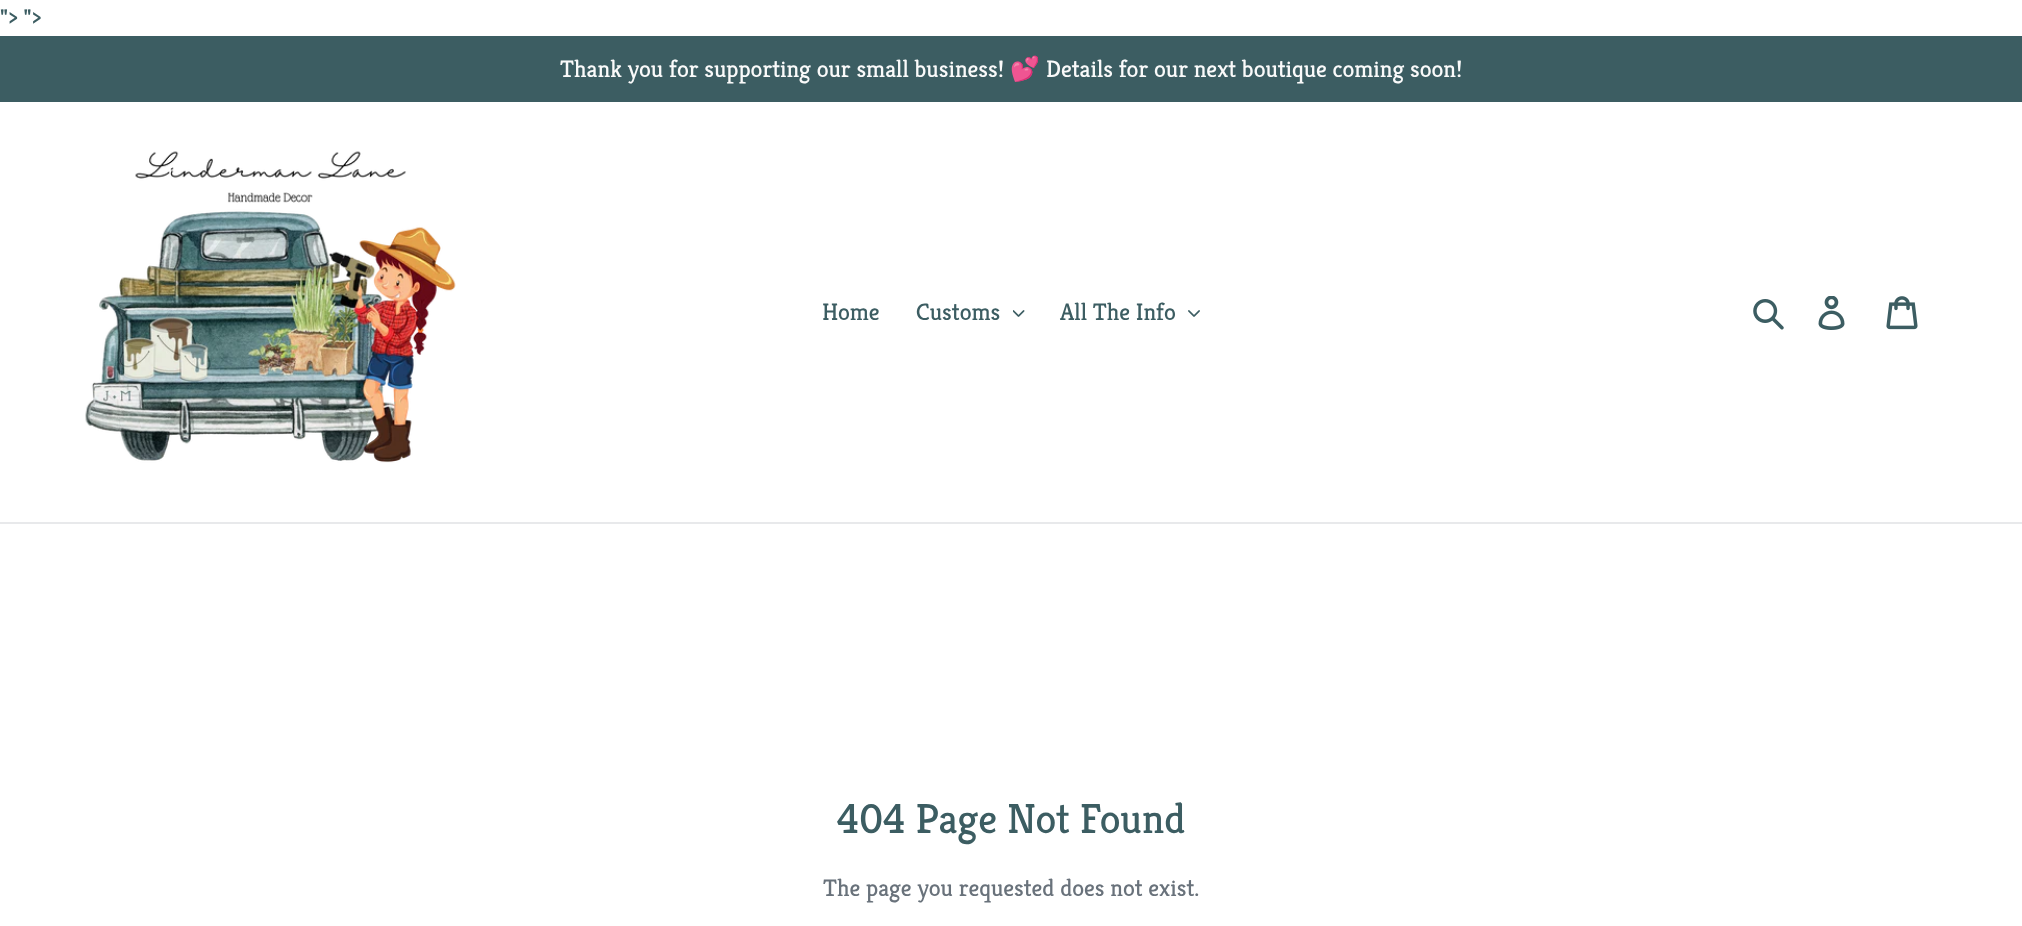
<svg xmlns="http://www.w3.org/2000/svg" width="2022" height="926" viewBox="0 0 2022 926">
  <style>
    .t1 { font: 24px Kreon; fill: #3c5d62; }
    .t2 { font: 24px Kreon; fill: #fafafa; }
    .t3 { font: 24px Noto Color Emoji; fill: #fafafa; }
    .t4 { font: 42px Kreon; fill: #3c5d62; }
    .t5 { font: 24px Kreon; fill: #69727b; }
  </style>
  <rect width="100%" height="100%" fill="#fff"/>
  <text x="0" y="26" class="t1">"&gt; "&gt;</text>
  <rect x="0" y="36" width="2022" height="66" fill="#3c5d62"/>
  <text x="560" y="77" class="t2">Thank you for supporting our small business!</text>
  <text x="1010" y="77" class="t3">💕</text>
  <text x="1046" y="77" class="t2">Details for our next boutique coming soon!</text>
  <rect x="0" y="522" width="2022" height="2" fill="#e8e9eb"/>
  <image x="85" y="151" width="371" height="312" href="images/1.png"/>
  <text x="822" y="320" class="t1">Home</text>
  <text x="916" y="320" class="t1">Customs</text>
  <image x="1013" y="310" width="12" height="7" href="images/2.png"/>
  <text x="1060" y="320" class="t1">All The Info</text>
  <image x="1188" y="310" width="12" height="7" href="images/3.png"/>
  <image x="1753" y="299" width="31" height="31" href="images/4.png"/>
  <image x="1818" y="296" width="27" height="34" href="images/5.png"/>
  <image x="1886" y="296" width="32" height="34" href="images/6.png"/>
  <text x="837" y="833" class="t4">404 Page Not Found</text>
  <text x="823" y="896" class="t5">The page you requested does not exist.</text>
</svg>
